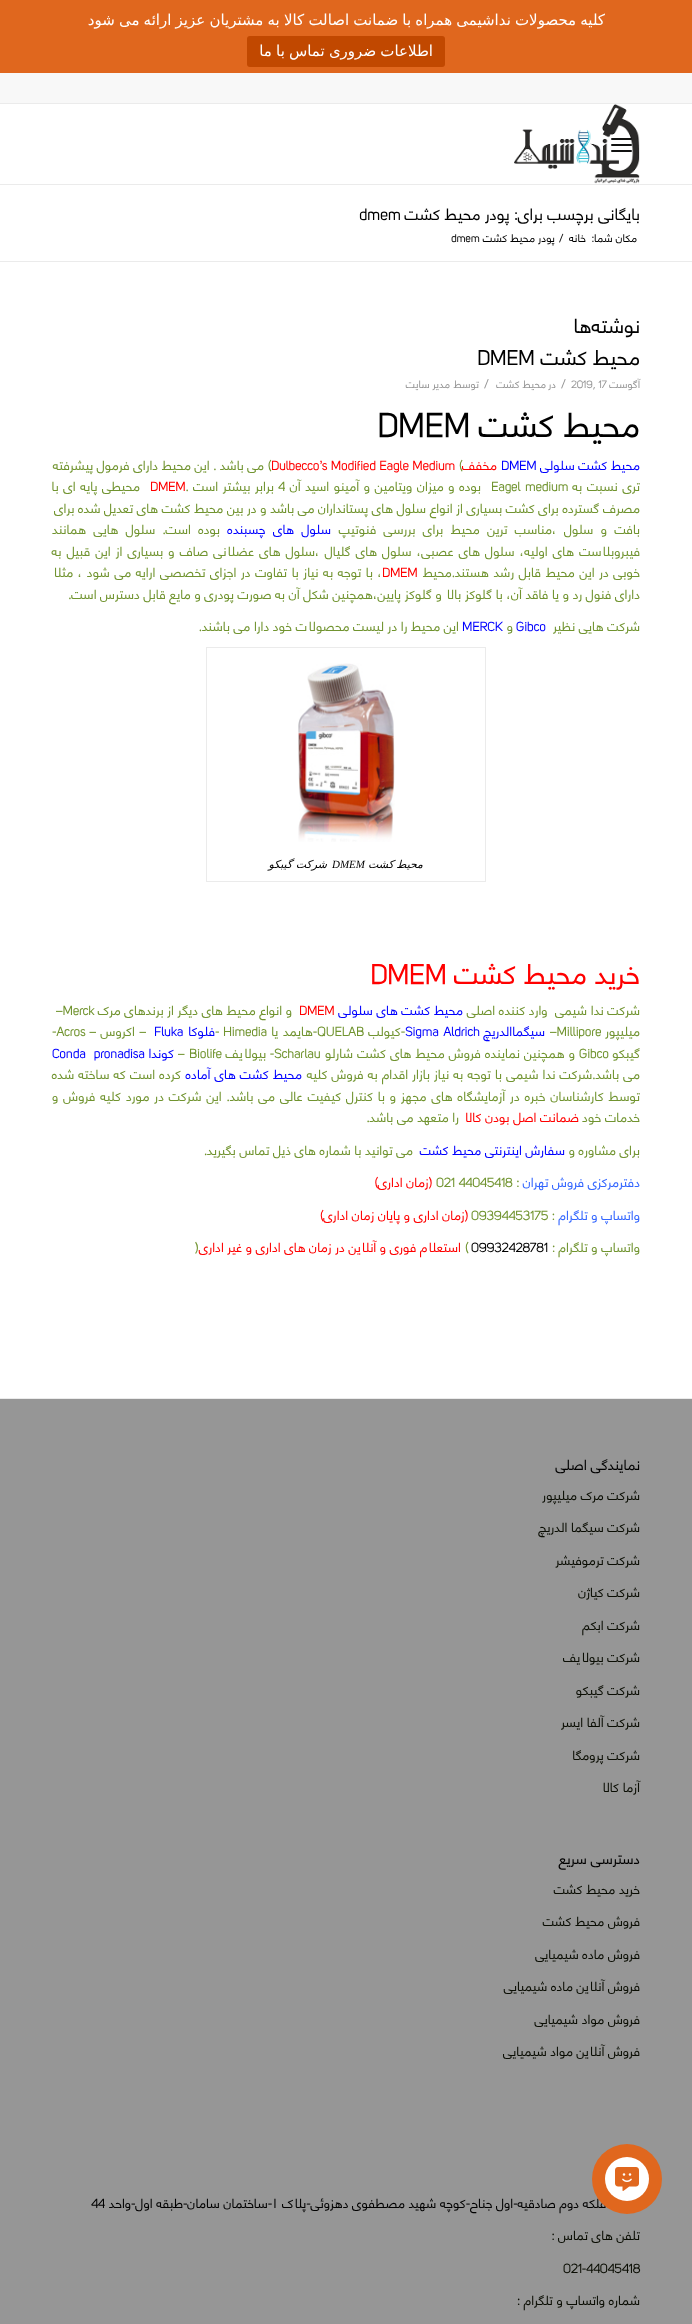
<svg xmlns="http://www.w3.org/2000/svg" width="692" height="2324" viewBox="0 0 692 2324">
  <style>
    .t1 { font: 15px DejaVu Sans; direction: rtl; fill: #fff; }
    .t2 { font: bold 16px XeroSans; direction: rtl; fill: #000; }
    .t3 { font: bold 16px XeroSans; fill: #000; }
    .t4 { font: bold 11px XeroSans; direction: rtl; fill: #000; }
    .t5 { font: bold 11px XeroSans; fill: #000; }
    .t6 { font: bold 20px XeroSans; direction: rtl; fill: #000; }
    .t7 { font: bold 21px XeroSans; direction: rtl; fill: #000; }
    .t8 { font: bold 21px XeroSans; fill: #000; }
    .t9 { font: bold 10.5px XeroSans; direction: rtl; fill: #969696; }
    .t10 { font: bold 10.5px XeroSans; fill: #969696; }
    .t11 { font: bold 12px XeroSans; fill: #969696; }
    .t12 { font: bold 34px XeroSans; direction: rtl; fill: #000; }
    .t13 { font: bold 34px XeroSans; fill: #000; }
    .t14 { font: bold 13px XeroSans; direction: rtl; fill: #00f; }
    .t15 { font: bold 13px XeroSans; fill: #00f; }
    .t16 { font: bold 13px XeroSans; direction: rtl; fill: #f00; }
    .t17 { font: bold 13px XeroSans; fill: #719430; }
    .t18 { font: bold 13px XeroSans; fill: #f00; }
    .t19 { font: bold 13px XeroSans; direction: rtl; fill: #719430; }
    .t20 { font: italic 11px DejaVu Sans; direction: rtl; fill: #000; }
    .t21 { font: italic 11px Liberation Serif; fill: #000; }
    .t22 { font: bold 28px XeroSans; direction: rtl; fill: #f00; }
    .t23 { font: bold 28px XeroSans; fill: #f00; }
    .t24 { font: bold 13px XeroSans; direction: rtl; fill: #36f; }
    .t25 { font: bold 13px XeroSans; fill: #000; }
    .t26 { font: bold 14.25px XeroSans; direction: rtl; fill: #000; }
    .t27 { font: bold 13px XeroSans; direction: rtl; fill: #0a0d03; }
    .t28 { font: bold 13px XeroSans; direction: rtl; fill: #000; }
    .t29 { font: bold 13px XeroSans; fill: #0a0d03; }
  </style>
  <rect width="100%" height="100%" fill="#fff"/>
  <rect x="0" y="0" width="692" height="73" fill="#e0671e"/>
  <text x="605" y="25" word-spacing="-0.6" class="t1">کلیه محصولات نداشیمی همراه با ضمانت اصالت کالا به مشتریان عزیز ارائه می شود</text>
  <rect x="247" y="36" width="198" height="31" rx="3" fill="#c14800"/>
  <text x="433" y="56" word-spacing="-0.6" class="t1">اطلاعات ضروری تماس با ما</text>
  <rect x="0" y="73" width="692" height="30" fill="#f8f8f8"/>
  <rect x="0" y="103" width="692" height="1" fill="#ebebeb"/>
  <rect x="0" y="184" width="692" height="1" fill="#ebebeb"/>
  <image x="514" y="104" width="126" height="80" href="images/1.png"/>
  <rect x="611" y="144" width="21" height="2" rx="1" fill="#111211"/>
  <rect x="611" y="138" width="21" height="2" rx="1" fill="#111211"/>
  <rect x="611" y="150" width="21" height="2" rx="1" fill="#111211"/>
  <text x="640" y="220" class="t2">بایگانی برچسب برای: پودر محیط کشت</text>
  <text x="359" y="220" class="t3">dmem</text>
  <text x="637" y="242" class="t4">مکان شما:</text>
  <text x="586" y="242" class="t4">خانه</text>
  <text x="559" y="242" class="t5">/</text>
  <text x="555" y="242" class="t4">پودر محیط کشت</text>
  <text x="451" y="242" class="t5">dmem</text>
  <rect x="0" y="261" width="692" height="1" fill="#ebebeb"/>
  <text x="640" y="333" class="t6">نوشته‌ها</text>
  <text x="640" y="365" class="t7">محیط کشت</text>
  <text x="477" y="365" class="t8">DMEM</text>
  <text x="640" y="388" class="t9">آگوست</text>
  <text x="571" y="388" class="t10">2019, 17</text>
  <text x="561" y="388" class="t11">/</text>
  <text x="556" y="388" class="t9">در</text>
  <text x="546" y="388" class="t9">محیط کشت</text>
  <text x="484" y="388" class="t11">/</text>
  <text x="479" y="388" class="t9">توسط</text>
  <text x="450" y="388" class="t9">مدیر سایت</text>
  <text x="640" y="437" class="t12">محیط کشت</text>
  <text x="377" y="437" class="t13">DMEM</text>
  <text x="640" y="470" class="t14">محیط کشت سلولی</text>
  <text x="501" y="470" class="t15">DMEM</text>
  <text x="497" y="470" class="t16">مخفف</text>
  <text x="459" y="470" class="t17">(</text>
  <text x="271" y="470" class="t18">Dulbecco’s Modified Eagle Medium</text>
  <text x="271" y="470" class="t19">) می باشد . این محیط دارای فرمول پیشرفته</text>
  <text x="640" y="491" word-spacing="1" class="t19">تری نسبت به</text>
  <text x="491" y="491" word-spacing="1" class="t17">Eagel medium</text>
  <text x="481" y="491" word-spacing="1" class="t19">بوده و میزان ویتامین و آمینو اسید آن</text>
  <text x="278" y="491" class="t17">4</text>
  <text x="274" y="491" word-spacing="1" class="t19">برابر بیشتر است .</text>
  <text x="150" y="491" class="t18">DMEM</text>
  <text x="140" y="491" word-spacing="1" class="t19">محیطی پایه ای با</text>
  <text x="640" y="513" class="t19">مصرف گسترده برای کشت بسیاری از انواع سلول های پستانداران می باشد و در بین محیط کشت های تعدیل شده برای</text>
  <text x="640" y="534" word-spacing="3.75" class="t19">بافت و سلول ،مناسب ترین محیط برای بررسی فنوتیپ</text>
  <text x="331" y="534" word-spacing="3.75" class="t14">سلول های چسبنده</text>
  <text x="220" y="534" word-spacing="3.75" class="t19">بوده است. سلول هایی همانند</text>
  <text x="640" y="556" word-spacing="1.5" class="t19">فیبروبلاست های اولیه، سلول های عصبی، سلول های گلیال ،سلول های عضلانی صاف و بسیاری از این قبیل به</text>
  <text x="640" y="577" word-spacing="1" class="t19">خوبی در این محیط قابل رشد هستند.محیط</text>
  <text x="382" y="577" class="t18">DMEM</text>
  <text x="382" y="577" word-spacing="1" class="t19">، با توجه به نیاز با تفاوت در اجزای تخصصی ارایه می شود ، مثلا</text>
  <text x="640" y="599" class="t19">دارای فنول رد و یا فاقد آن، با گلوکز بالا و گلوکز پایین،همچنین شکل آن به صورت پودری و مایع قابل دسترس است.</text>
  <text x="640" y="631" class="t19">شرکت هایی نظیر</text>
  <text x="516" y="631" class="t15">Gibco</text>
  <text x="513" y="631" class="t19">و</text>
  <text x="462" y="631" class="t15">MERCK</text>
  <text x="459" y="631" class="t19">این محیط را در لیست محصولات خود دارا می باشند.</text>
  <rect x="206.5" y="647.5" width="279" height="234" fill="none" stroke="#ebebeb"/>
  <image x="298" y="663" width="97" height="179" href="images/2.png"/>
  <text x="423" y="868" word-spacing="-1" class="t20">محیط کشت</text>
  <text x="332" y="868" class="t21">DMEM</text>
  <text x="327" y="868" class="t20">شرکت گیبکو</text>
  <text x="640" y="984" class="t22">خرید محیط کشت</text>
  <text x="370" y="984" class="t23">DMEM</text>
  <text x="640" y="1015" class="t19" xml:space="preserve">شرکت ندا شیمی  وارد کننده اصلی</text>
  <text x="463" y="1015" class="t14">محیط کشت های سلولی</text>
  <text x="299" y="1015" class="t18">DMEM</text>
  <text x="292" y="1015" class="t19">و انواع محیط های دیگر از برندهای مرک</text>
  <text x="56" y="1015" class="t17">–Merck</text>
  <text x="640" y="1036" class="t19">میلیپور</text>
  <text x="550" y="1036" class="t17">–Millipore</text>
  <text x="545" y="1036" class="t14">سیگماالدریچ</text>
  <text x="405" y="1036" word-spacing="1" class="t15">Sigma Aldrich</text>
  <text x="405" y="1036" class="t19">-کیولب</text>
  <text x="317" y="1036" class="t17">QUELAB</text>
  <text x="317" y="1036" word-spacing="1" class="t19">-هایمد یا</text>
  <text x="223" y="1036" class="t17">Himedia</text>
  <text x="215" y="1036" class="t17">-</text>
  <text x="215" y="1036" class="t14">فلوکا</text>
  <text x="154" y="1036" class="t15">Fluka</text>
  <text x="146" y="1036" word-spacing="1" class="t19">– اکروس –</text>
  <text x="52" y="1036" class="t17">-Acros</text>
  <text x="640" y="1058" class="t19">گیبکو</text>
  <text x="579" y="1058" class="t17">Gibco</text>
  <text x="575" y="1058" word-spacing="0.5" class="t19">و همچنین نماینده فروش محیط های کشت شارلو</text>
  <text x="274" y="1058" class="t17">Scharlau</text>
  <text x="274" y="1058" class="t19">- بیولایف</text>
  <text x="189" y="1058" class="t17">Biolife</text>
  <text x="178" y="1058" class="t17">–</text>
  <text x="174" y="1058" class="t14">کوندا</text>
  <text x="52" y="1058" word-spacing="0.5" class="t15" xml:space="preserve">Conda  pronadisa</text>
  <text x="640" y="1079" word-spacing="0.5" class="t19">می باشد.شرکت ندا شیمی با توجه به نیاز بازار اقدام به فروش کلیه</text>
  <text x="302" y="1079" word-spacing="0.5" class="t14">محیط کشت های آماده</text>
  <text x="181" y="1079" word-spacing="0.5" class="t19">کرده است که ساخته شده</text>
  <text x="640" y="1101" word-spacing="1.3" class="t19">توسط کارشناسان خبره در آزمایشگاه های مجهز و با کنترل کیفیت عالی می باشد. این شرکت در مورد کلیه فروش و</text>
  <text x="640" y="1122" class="t19">خدمات خود</text>
  <text x="579" y="1122" class="t16">ضمانت اصل بودن کالا</text>
  <text x="459" y="1122" class="t19">را متعهد می باشد.</text>
  <text x="640" y="1155" class="t19">برای مشاوره و</text>
  <text x="565" y="1155" class="t14">سفارش اینترنتی محیط کشت</text>
  <text x="413" y="1155" class="t19">می توانید با شماره های ذیل تماس بگیرید.</text>
  <text x="640" y="1187" class="t24">دفترمرکزی فروش تهران</text>
  <text x="436" y="1187" class="t17">021 44045418 :</text>
  <text x="432" y="1187" class="t16">(زمان اداری)</text>
  <text x="640" y="1220" class="t24">واتساپ و تلگرام</text>
  <text x="471" y="1220" class="t17">09394453175 :</text>
  <text x="468" y="1220" class="t16">(زمان اداری و پایان زمان اداری)</text>
  <text x="640" y="1252" class="t19">واتساپ و تلگرام :</text>
  <text x="471" y="1252" class="t25">09932428781</text>
  <text x="465" y="1252" class="t17">(</text>
  <text x="461" y="1252" class="t16">استعلام فوری و آنلاین در زمان های اداری و غیر اداری</text>
  <text x="195" y="1252" class="t17">)</text>
  <rect x="0" y="1399" width="692" height="925" fill="#969696"/>
  <rect x="0" y="1398" width="692" height="1" fill="#ebebeb"/>
  <text x="640" y="1470" class="t26">نمایندگی اصلی</text>
  <text x="640" y="1500" class="t27">شرکت مرک میلیپور</text>
  <text x="640" y="1532" class="t27">شرکت سیگما الدریچ</text>
  <text x="640" y="1565" class="t27">شرکت ترموفیشر</text>
  <text x="640" y="1597" class="t27">شرکت کیاژن</text>
  <text x="640" y="1630" class="t27">شرکت ابکم</text>
  <text x="640" y="1662" class="t27">شرکت بیولایف</text>
  <text x="640" y="1695" class="t27">شرکت گیبکو</text>
  <text x="640" y="1727" class="t27">شرکت آلفا ایسر</text>
  <text x="640" y="1760" class="t27">شرکت پرومگا</text>
  <text x="640" y="1792" class="t27">آزما کالا</text>
  <text x="640" y="1864" class="t26">دسترسی سریع</text>
  <text x="640" y="1894" class="t27">خرید محیط کشت</text>
  <text x="640" y="1926" class="t27">فروش محیط کشت</text>
  <text x="640" y="1959" class="t27">فروش ماده شیمیایی</text>
  <text x="640" y="1991" class="t27">فروش آنلاین ماده شیمیایی</text>
  <text x="640" y="2024" class="t27">فروش مواد شیمیایی</text>
  <text x="640" y="2056" class="t27">فروش آنلاین مواد شیمیایی</text>
  <text x="640" y="2208" class="t28">تهران -فلکه دوم صادقیه-اول جناح-کوچه شهید مصطفوی دهزوئی-پلاک</text>
  <text x="272" y="2208" class="t25">۱</text>
  <text x="272" y="2208" class="t28">-ساختمان سامان-طبقه اول-واحد</text>
  <text x="91" y="2208" class="t25">44</text>
  <text x="640" y="2240" class="t27">تلفن های تماس :</text>
  <text x="563" y="2273" class="t29">021-44045418</text>
  <text x="640" y="2305" class="t27">شماره واتساپ و تلگرام :</text>
  <circle cx="627" cy="2179" r="35" fill="#e0671e"/>
  <circle cx="627" cy="2179" r="22" fill="#fff"/>
  <image x="615" y="2167" width="24" height="24" href="images/3.png"/>
</svg>
